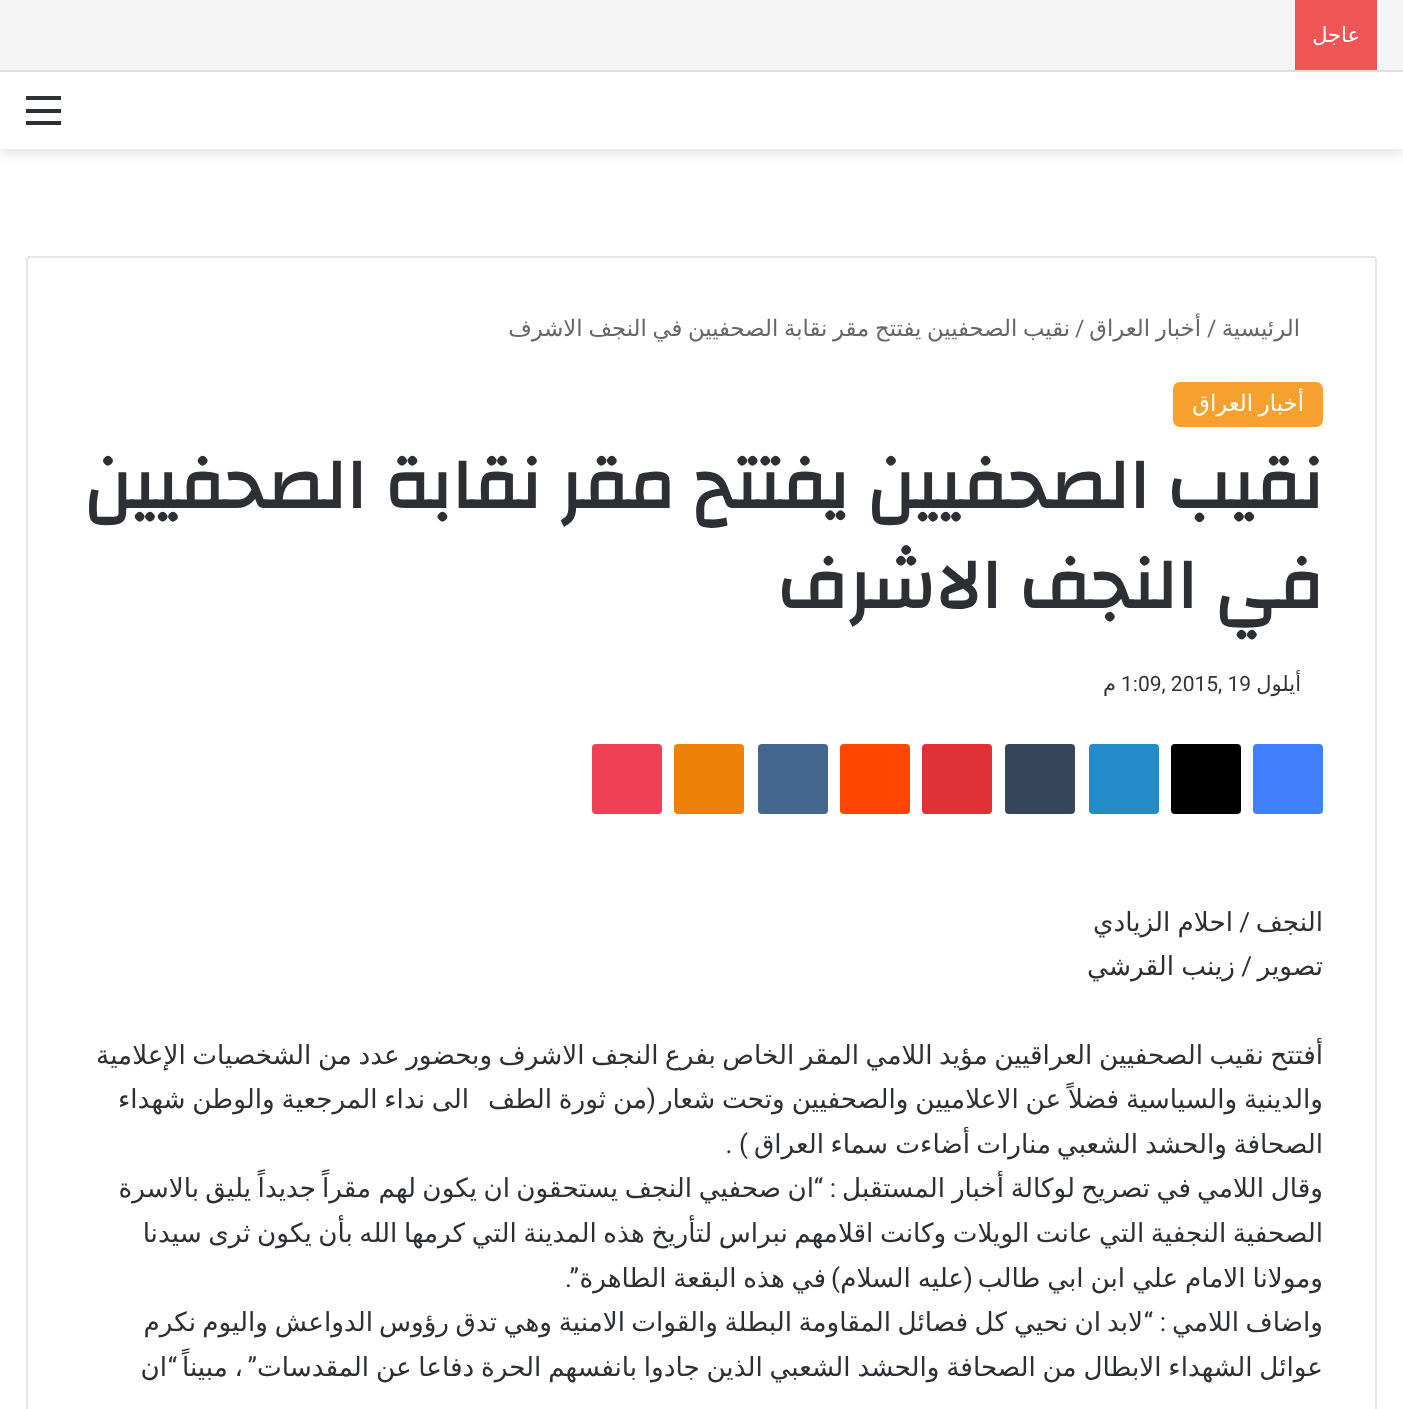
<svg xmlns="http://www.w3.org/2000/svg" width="1403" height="1409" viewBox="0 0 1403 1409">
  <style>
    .t1 { font: 21px DejaVu Sans; direction: rtl; fill: #fff; }
    .t2 { font: 22.75px DejaVu Sans; direction: rtl; fill: #666; }
    .t3 { font: 22.75px Roboto; fill: #666; }
    .t4 { font: 22.75px DejaVu Sans; direction: rtl; fill: #fff; }
    .t5 { font: bold 71.75px Changa; direction: rtl; fill: #2c2f34; }
    .t6 { font: 21px DejaVu Sans; direction: rtl; fill: #333; }
    .t7 { font: 21px Roboto; fill: #333; }
    .t8 { font: 26.25px DejaVu Sans; direction: rtl; fill: #2c2f34; }
    .t9 { font: 26.25px Roboto; direction: rtl; fill: #2c2f34; }
  </style>
  <rect width="100%" height="100%" fill="#fff"/>
  <rect x="0" y="77" width="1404" height="77" fill="#0000001a" filter="blur(6px)"/>
  <rect x="0" y="0" width="1403" height="70" fill="#f5f5f5"/>
  <rect x="0" y="70" width="1403" height="2" fill="#ddd"/>
  <rect x="1295" y="0" width="82" height="70" fill="#f05555"/>
  <text x="1360" y="42" class="t1">عاجل</text>
  <rect x="0" y="72" width="1403" height="77" fill="#fff"/>
  <rect x="26" y="109" width="35" height="4" fill="#2c2f34"/>
  <rect x="26" y="96" width="35" height="4" fill="#2c2f34"/>
  <rect x="26" y="121" width="35" height="4" fill="#2c2f34"/>
  <rect x="27" y="257" width="1349" height="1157" rx="3" fill="none" stroke="#e6e6e6" stroke-width="2"/>
  <text x="1300" y="336" class="t2">الرئيسية</text>
  <text x="1201" y="336" word-spacing="-1.5" class="t2">أخبار العراق</text>
  <text x="1075" y="336" class="t3">/</text>
  <text x="1070" y="336" word-spacing="-1.5" class="t2">نقيب الصحفيين يفتتح مقر نقابة الصحفيين في النجف الاشرف</text>
  <text x="1207" y="336" class="t3">/</text>
  <rect x="1173" y="382" width="150" height="45" rx="7" fill="#f6a12f"/>
  <text x="1304" y="411" word-spacing="-1.5" class="t4">أخبار العراق</text>
  <text x="1323" y="508" class="t5">نقيب الصحفيين يفتتح مقر نقابة الصحفيين</text>
  <text x="1323" y="608" class="t5">في النجف الاشرف</text>
  <text x="1301" y="691" class="t6">أيلول</text>
  <text x="1121" y="691" class="t7">1:09, 2015, 19</text>
  <text x="1116" y="691" class="t6">م</text>
  <rect x="1253" y="744" width="70" height="70" rx="4" fill="#4080ff"/>
  <rect x="1171" y="744" width="70" height="70" rx="4" fill="#000"/>
  <rect x="1089" y="744" width="70" height="70" rx="4" fill="#238cc8"/>
  <rect x="1005" y="744" width="70" height="70" rx="4" fill="#35465c"/>
  <rect x="922" y="744" width="70" height="70" rx="4" fill="#e13138"/>
  <rect x="840" y="744" width="70" height="70" rx="4" fill="#ff4500"/>
  <rect x="758" y="744" width="70" height="70" rx="4" fill="#45668e"/>
  <rect x="674" y="744" width="70" height="70" rx="4" fill="#ee8208"/>
  <rect x="592" y="744" width="70" height="70" rx="4" fill="#ef4056"/>
  <text x="1323" y="931" class="t8">النجف</text>
  <text x="1250" y="931" class="t9">/</text>
  <text x="1233" y="931" word-spacing="-1" class="t8">احلام الزيادي</text>
  <text x="1323" y="975" class="t8">تصوير</text>
  <text x="1252" y="975" class="t9">/</text>
  <text x="1235" y="975" word-spacing="-1" class="t8">زينب القرشي</text>
  <text x="1323" y="1064" word-spacing="-1.8" class="t8">أفتتح نقيب الصحفيين العراقيين مؤيد اللامي المقر الخاص بفرع النجف الاشرف وبحضور عدد من الشخصيات الإعلامية</text>
  <text x="1323" y="1108" word-spacing="-1.5" class="t8">والدينية والسياسية فضلاً عن الاعلاميين والصحفيين وتحت شعار</text>
  <text x="656" y="1108" class="t9">(</text>
  <text x="647" y="1108" word-spacing="-1.5" class="t8">من ثورة الطف</text>
  <text x="469" y="1108" word-spacing="-1.5" class="t8">الى نداء المرجعية والوطن شهداء</text>
  <text x="1323" y="1153" class="t8">الصحافة</text>
  <text x="1227" y="1153" class="t8">والحشد</text>
  <text x="1138" y="1153" class="t8">الشعبي</text>
  <text x="1051" y="1153" class="t8">منارات</text>
  <text x="970" y="1153" class="t8">أضاءت</text>
  <text x="888" y="1153" class="t8">سماء</text>
  <text x="824" y="1153" class="t8">العراق</text>
  <text x="748" y="1153" class="t9">) .</text>
  <text x="1323" y="1197" class="t8">وقال</text>
  <text x="1264" y="1197" class="t8">اللامي</text>
  <text x="1191" y="1197" class="t8">في</text>
  <text x="1150" y="1197" class="t8">تصريح</text>
  <text x="1075" y="1197" class="t8">لوكالة</text>
  <text x="1004" y="1197" class="t8">أخبار</text>
  <text x="945" y="1197" class="t8">المستقبل</text>
  <text x="836" y="1197" class="t9">: “</text>
  <text x="814" y="1197" class="t8">ان</text>
  <text x="781" y="1197" class="t8">صحفيي</text>
  <text x="692" y="1197" class="t8">النجف</text>
  <text x="618" y="1197" class="t8">يستحقون</text>
  <text x="510" y="1197" class="t8">ان</text>
  <text x="477" y="1197" class="t8">يكون</text>
  <text x="416" y="1197" class="t8">لهم</text>
  <text x="371" y="1197" class="t8">مقراً</text>
  <text x="316" y="1197" class="t8">جديداً</text>
  <text x="251" y="1197" class="t8">يليق</text>
  <text x="199" y="1197" class="t8">بالاسرة</text>
  <text x="1323" y="1242" word-spacing="-1.8" class="t8">الصحفية النجفية التي عانت الويلات وكانت اقلامهم نبراس لتأريخ هذه المدينة التي كرمها الله بأن يكون ثرى سيدنا</text>
  <text x="1323" y="1287" word-spacing="-1.5" class="t8">ومولانا الامام علي ابن ابي طالب</text>
  <text x="973" y="1287" class="t9">(</text>
  <text x="964" y="1287" word-spacing="-1.5" class="t8">عليه السلام</text>
  <text x="840" y="1287" class="t9">)</text>
  <text x="826" y="1287" word-spacing="-1.5" class="t8">في هذه البقعة الطاهرة</text>
  <text x="579" y="1287" class="t9">”.</text>
  <text x="1323" y="1331" class="t8">واضاف</text>
  <text x="1239" y="1331" class="t8">اللامي</text>
  <text x="1166" y="1331" class="t9">: “</text>
  <text x="1143" y="1331" class="t8">لابد</text>
  <text x="1101" y="1331" class="t8">ان</text>
  <text x="1068" y="1331" class="t8">نحيي</text>
  <text x="1007" y="1331" class="t8">كل</text>
  <text x="968" y="1331" class="t8">فصائل</text>
  <text x="891" y="1331" class="t8">المقاومة</text>
  <text x="792" y="1331" class="t8">البطلة</text>
  <text x="718" y="1331" class="t8">والقوات</text>
  <text x="625" y="1331" class="t8">الامنية</text>
  <text x="552" y="1331" class="t8">وهي</text>
  <text x="497" y="1331" class="t8">تدق</text>
  <text x="449" y="1331" class="t8">رؤوس</text>
  <text x="373" y="1331" class="t8">الدواعش</text>
  <text x="268" y="1331" class="t8">واليوم</text>
  <text x="196" y="1331" class="t8">نكرم</text>
  <text x="1323" y="1376" word-spacing="-1.6" class="t8">عوائل الشهداء الابطال من الصحافة والحشد الشعبي الذين جادوا بانفسهم الحرة دفاعا عن المقدسات</text>
  <text x="257" y="1376" class="t9">”</text>
  <text x="243" y="1376" word-spacing="-1.6" class="t8">، مبيناً</text>
  <text x="177" y="1376" class="t9">“</text>
  <text x="167" y="1376" class="t8">ان</text>
</svg>
